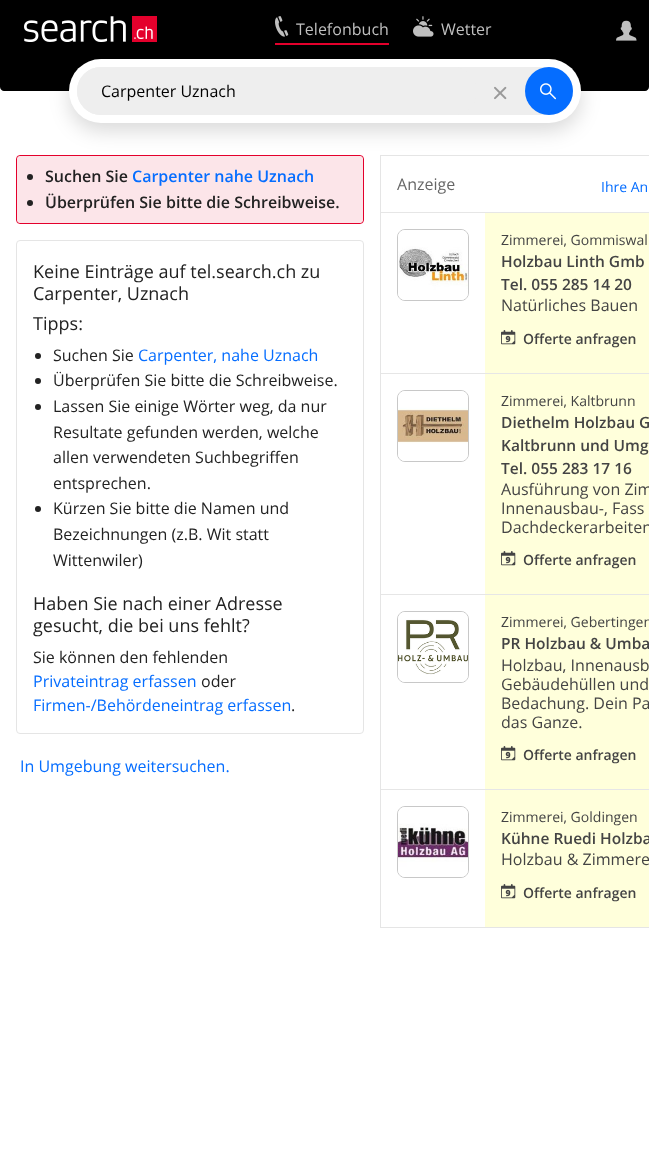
<svg xmlns="http://www.w3.org/2000/svg" width="649" height="1153" viewBox="0 0 649 1153">
  <style>
    .t1 { font: 16px Open Sans; fill: #bfbfbf; }
    .t2 { font: 16px Open Sans; fill: #000; }
    .t3 { font: 600 16px Open Sans; fill: #222; }
    .t4 { font: 600 16px Open Sans; fill: #056dff; }
    .t5 { font: 18px Open Sans; fill: #222; }
    .t6 { font: 16px Open Sans; fill: #222; }
    .t7 { font: 16px Open Sans; fill: #056dff; }
    .t8 { font: 16px Open Sans; fill: #666; }
    .t9 { font: 14px Open Sans; fill: #056dff; }
    .t10 { font: 14px Open Sans; fill: #444; }
    .t11 { font: 600 15.5px Open Sans; fill: #444; }
    .t12 { font: 16px Open Sans; fill: #444; }
    .t13 { font: 600 14px Open Sans; fill: #444; }
  </style>
  <defs>
    <clipPath id="clip1"><rect x="17" y="156" width="346" height="67" rx="3"/></clipPath>
  </defs>
  <rect width="100%" height="100%" fill="#fff"/>
  <rect x="0" y="0" width="649" height="59" fill="#000"/>
  <image x="24" y="16" width="133" height="26" href="images/1.png"/>
  <rect x="275" y="43" width="114" height="2" fill="#e4002c"/>
  <image x="275" y="16" width="14" height="21" href="images/2.png"/>
  <text x="296" y="35" class="t1">Telefonbuch</text>
  <image x="413" y="16" width="21" height="21" href="images/3.png"/>
  <text x="441" y="35" class="t1">Wetter</text>
  <image x="616" y="20" width="21" height="21" href="images/4.png"/>
  <path d="M0 59H649V87C649 89 647 91 645 91H4C2 91 0 89 0 87Z" fill="#000"/>
  <rect x="16.5" y="155.5" width="347" height="68" rx="3.5" fill="#fce5e9" stroke="#e4002c"/>
  <g clip-path="url(#clip1)">
    <rect x="17" y="156" width="346" height="67" rx="4" fill="#fce5e9"/>
  </g>
  <rect x="380.5" y="155.5" width="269" height="772" fill="none" stroke="#e5e5e5"/>
  <rect x="69" y="67" width="512" height="64" rx="32" fill="#00000026" filter="blur(10px)"/>
  <rect x="69" y="59" width="512" height="64" rx="32" fill="#fff"/>
  <rect x="77" y="67" width="496" height="48" rx="24" fill="#eee"/>
  <rect x="77" y="67" width="400" height="48" rx="24" fill="#eee"/>
  <text x="101" y="97" class="t2">Carpenter Uznach</text>
  <image x="494" y="86" width="13" height="14" href="images/5.png"/>
  <circle cx="549" cy="91" r="24" fill="#056dff"/>
  <image x="540" y="83" width="16" height="17" href="images/6.png"/>
  <circle cx="30" cy="177" r="3" fill="#222"/>
  <text x="45" y="182" class="t3">Suchen Sie</text>
  <text x="132" y="182" class="t4">Carpenter nahe Uznach</text>
  <circle cx="30" cy="203" r="3" fill="#222"/>
  <text x="45" y="208" class="t3">Überprüfen Sie bitte die Schreibweise.</text>
  <rect x="16.5" y="240.5" width="347" height="493" rx="3.5" fill="none" stroke="#e5e5e5"/>
  <text x="33" y="278" class="t5">Keine Einträge auf tel.search.ch zu</text>
  <text x="33" y="300" class="t5">Carpenter, Uznach</text>
  <text x="33" y="330" class="t5">Tipps:</text>
  <circle cx="38" cy="356" r="3" fill="#222"/>
  <text x="53" y="361" class="t6">Suchen Sie</text>
  <text x="138" y="361" class="t7">Carpenter, nahe Uznach</text>
  <circle cx="38" cy="381" r="3" fill="#222"/>
  <text x="53" y="386" class="t6">Überprüfen Sie bitte die Schreibweise.</text>
  <circle cx="38" cy="407" r="3" fill="#222"/>
  <text x="53" y="412" class="t6">Lassen Sie einige Wörter weg, da nur</text>
  <text x="53" y="438" class="t6">Resultate gefunden werden, welche</text>
  <text x="53" y="463" class="t6">allen verwendeten Suchbegriffen</text>
  <text x="53" y="489" class="t6">entsprechen.</text>
  <circle cx="38" cy="509" r="3" fill="#222"/>
  <text x="53" y="514" class="t6">Kürzen Sie bitte die Namen und</text>
  <text x="53" y="540" class="t6">Bezeichnungen (z.B. Wit statt</text>
  <text x="53" y="566" class="t6">Wittenwiler)</text>
  <text x="33" y="610" class="t5">Haben Sie nach einer Adresse</text>
  <text x="33" y="632" class="t5">gesucht, die bei uns fehlt?</text>
  <text x="33" y="663" class="t6">Sie können den fehlenden</text>
  <text x="33" y="687" class="t7">Privateintrag erfassen</text>
  <text x="201" y="687" class="t6">oder</text>
  <text x="33" y="711" class="t7">Firmen-/Behördeneintrag erfassen</text>
  <text x="291" y="711" class="t6">.</text>
  <text x="20" y="772" class="t7">In Umgebung weitersuchen.</text>
  <text x="397" y="190" class="t8">Anzeige</text>
  <text x="601" y="192" class="t9">Ihre An</text>
  <rect x="381" y="212" width="268" height="1" fill="#e6e6e6"/>
  <rect x="397.5" y="229.5" width="71" height="71" rx="7.5" fill="none" stroke="#c8c8c8"/>
  <image x="398" y="230" width="70" height="70" href="images/7.png"/>
  <rect x="485" y="213" width="164" height="160" fill="#ffffdb"/>
  <text x="501" y="245" class="t10">Zimmerei, Gommiswal</text>
  <text x="501" y="267" class="t11">Holzbau Linth Gmb</text>
  <text x="501" y="290" class="t11">Tel. 055 285 14 20</text>
  <text x="501" y="311" class="t12">Natürliches Bauen</text>
  <image x="501" y="330" width="15" height="15" href="images/8.png"/>
  <text x="523" y="344" class="t13">Offerte anfragen</text>
  <rect x="381" y="373" width="268" height="1" fill="#e6e6e6"/>
  <rect x="397.5" y="390.5" width="71" height="71" rx="7.5" fill="none" stroke="#c8c8c8"/>
  <image x="398" y="391" width="70" height="70" href="images/9.png"/>
  <rect x="485" y="374" width="164" height="220" fill="#ffffdb"/>
  <text x="501" y="406" class="t10">Zimmerei, Kaltbrunn</text>
  <text x="501" y="428" class="t11">Diethelm Holzbau G</text>
  <text x="501" y="451" class="t11">Kaltbrunn und Umg</text>
  <text x="501" y="474" class="t11">Tel. 055 283 17 16</text>
  <text x="501" y="495" class="t12">Ausführung von Zim</text>
  <text x="501" y="514" class="t12">Innenausbau-, Fass</text>
  <text x="501" y="533" class="t12">Dachdeckerarbeiten</text>
  <image x="501" y="551" width="15" height="15" href="images/8.png"/>
  <text x="523" y="565" class="t13">Offerte anfragen</text>
  <rect x="381" y="594" width="268" height="1" fill="#e6e6e6"/>
  <rect x="397.5" y="611.5" width="71" height="71" rx="7.5" fill="none" stroke="#c8c8c8"/>
  <image x="398" y="612" width="70" height="70" href="images/10.png"/>
  <rect x="485" y="595" width="164" height="194" fill="#ffffdb"/>
  <text x="501" y="627" class="t10">Zimmerei, Gebertingen</text>
  <text x="501" y="649" class="t11">PR Holzbau &amp; Umba</text>
  <text x="501" y="671" class="t12">Holzbau, Innenausb</text>
  <text x="501" y="690" class="t12">Gebäudehüllen und</text>
  <text x="501" y="709" class="t12">Bedachung. Dein Pa</text>
  <text x="501" y="728" class="t12">das Ganze.</text>
  <image x="501" y="746" width="15" height="15" href="images/8.png"/>
  <text x="523" y="760" class="t13">Offerte anfragen</text>
  <rect x="381" y="789" width="268" height="1" fill="#e6e6e6"/>
  <rect x="397.5" y="806.5" width="71" height="71" rx="7.5" fill="none" stroke="#c8c8c8"/>
  <image x="398" y="807" width="70" height="70" href="images/11.png"/>
  <rect x="485" y="790" width="164" height="137" fill="#ffffdb"/>
  <text x="501" y="822" class="t10">Zimmerei, Goldingen</text>
  <text x="501" y="844" class="t11">Kühne Ruedi Holzba</text>
  <text x="501" y="865" class="t12">Holzbau &amp; Zimmere</text>
  <image x="501" y="884" width="15" height="15" href="images/8.png"/>
  <text x="523" y="898" class="t13">Offerte anfragen</text>
</svg>
